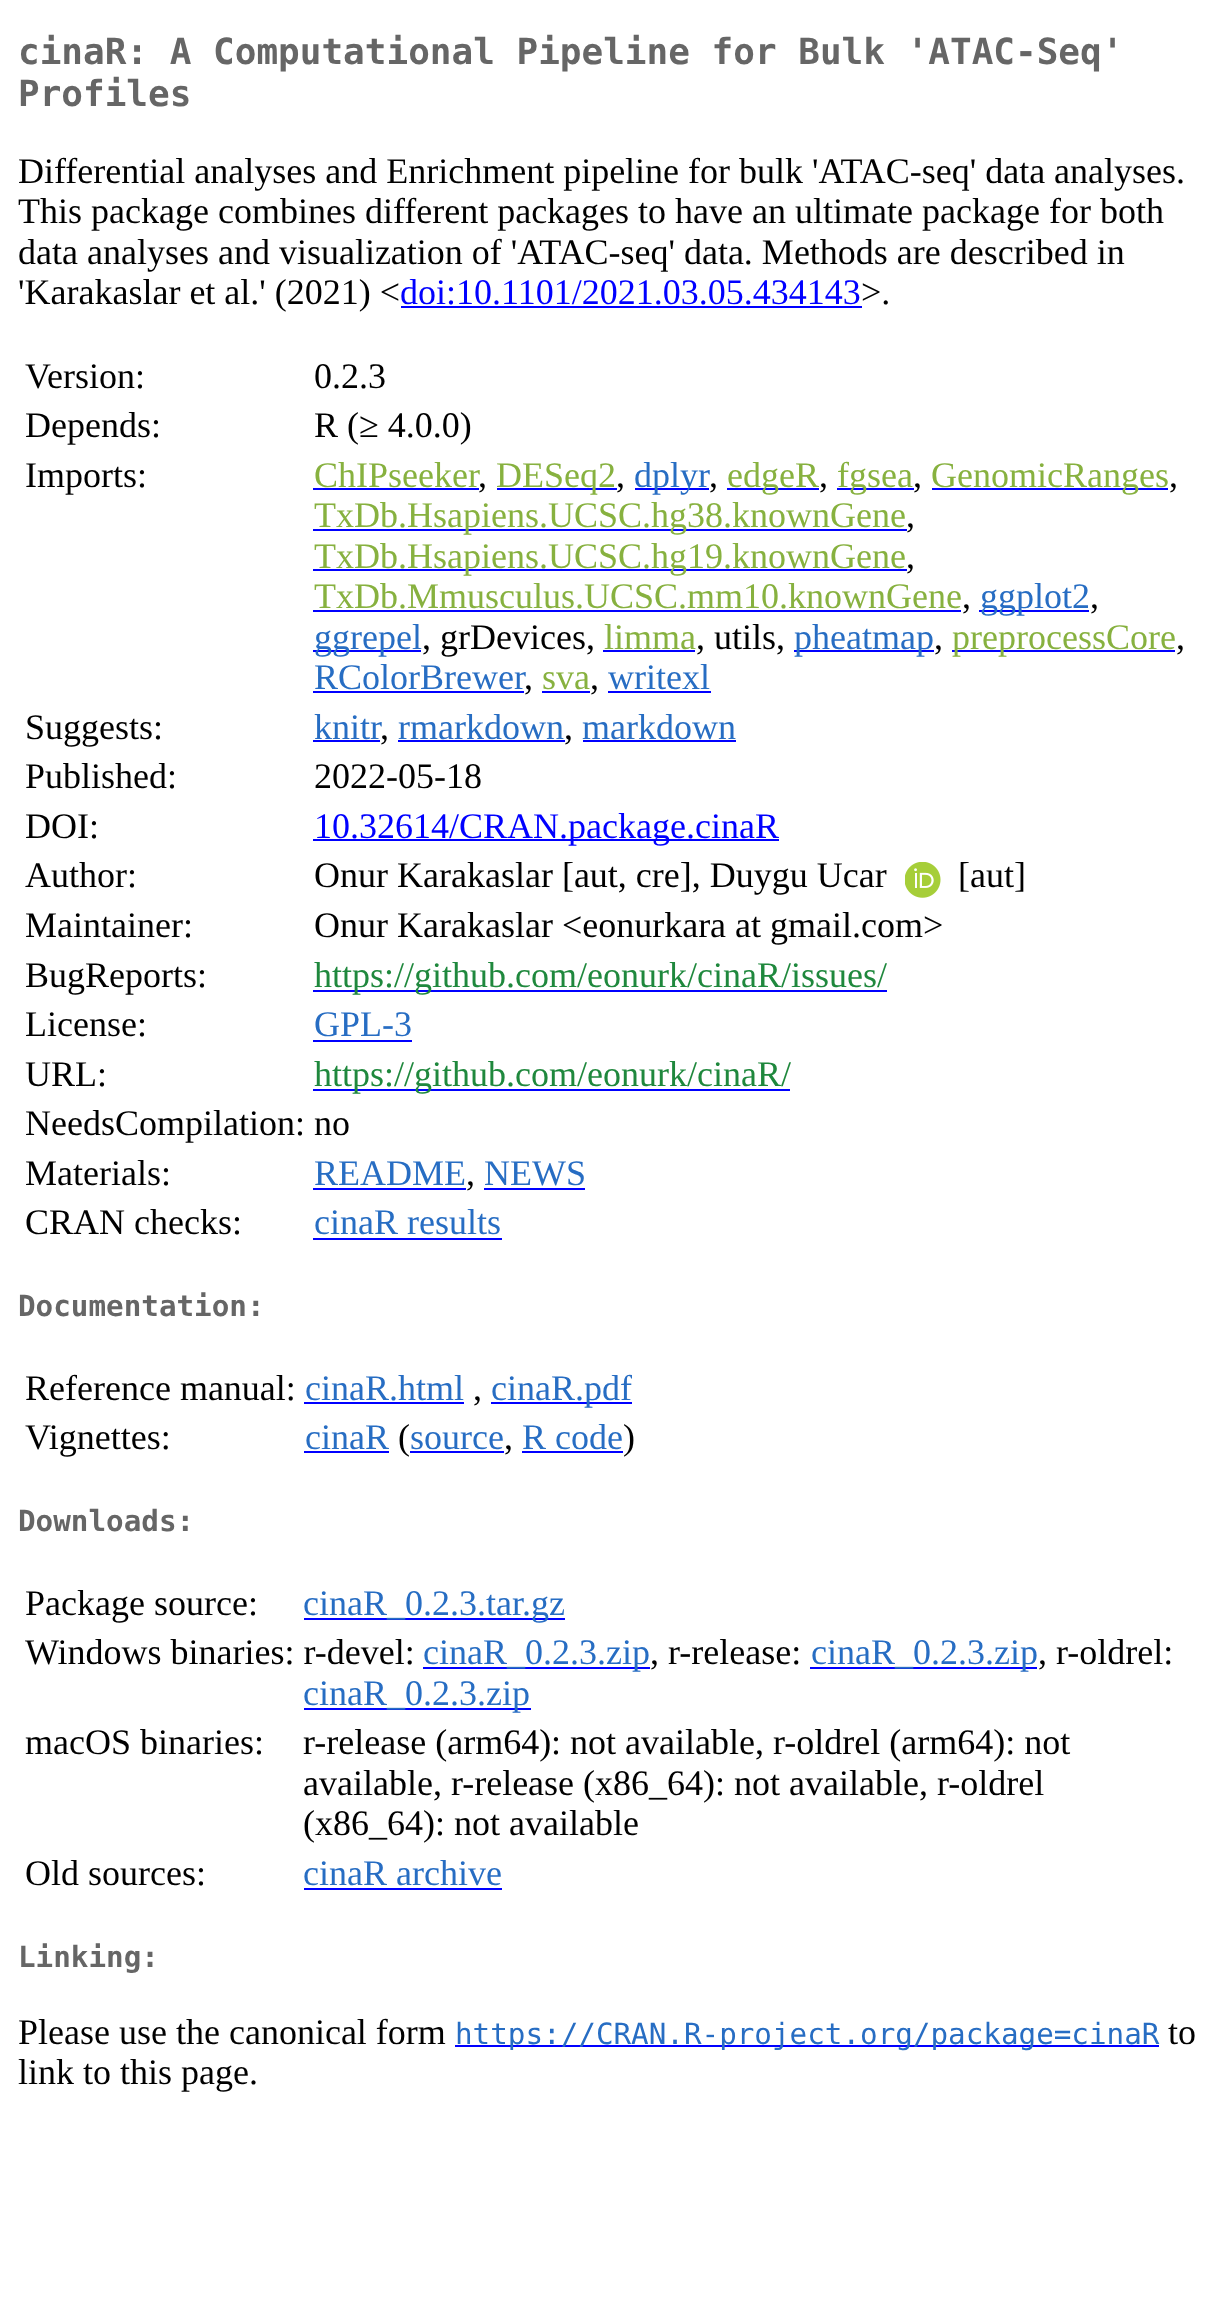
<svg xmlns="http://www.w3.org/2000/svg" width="1214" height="2314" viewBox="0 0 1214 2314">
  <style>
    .t1 { font: bold 36px DejaVu Sans Mono; fill: #666; }
    .t2 { font: 36px Liberation Serif; fill: #000; }
    .t3 { font: 36px Liberation Serif; fill: #00f; }
    .t4 { font: 36px Liberation Serif; fill: #87b13f; }
    .t5 { font: 36px Liberation Serif; fill: #276dc3; }
    .t6 { font: 36px Liberation Serif; fill: #1f883d; }
    .t7 { font: bold 29.25px DejaVu Sans Mono; fill: #666; }
    .t8 { font: 29.25px DejaVu Sans Mono; fill: #276dc3; }
  </style>
  <rect width="100%" height="100%" fill="#fff"/>
  <text x="18" y="64" class="t1">cinaR: A Computational Pipeline for Bulk 'ATAC-Seq'</text>
  <text x="18" y="106" class="t1">Profiles</text>
  <text x="18" y="183" class="t2">Differential analyses and Enrichment pipeline for bulk 'ATAC-seq' data analyses.</text>
  <text x="18" y="223" class="t2">This package combines different packages to have an ultimate package for both</text>
  <text x="18" y="264" class="t2">data analyses and visualization of 'ATAC-seq' data. Methods are described in</text>
  <text x="18" y="304" class="t2">'Karakaslar et al.' (2021) &lt;</text>
  <text x="400" y="304" class="t3">doi:10.1101/2021.03.05.434143</text>
  <rect x="401" y="306" width="461" height="2" fill="#00f"/>
  <text x="861" y="304" class="t2">&gt;.</text>
  <text x="25" y="388" class="t2">Version:</text>
  <text x="314" y="388" class="t2">0.2.3</text>
  <text x="25" y="437" class="t2">Depends:</text>
  <text x="314" y="437" class="t2">R (≥ 4.0.0)</text>
  <text x="25" y="487" class="t2">Imports:</text>
  <text x="314" y="487" class="t4">ChIPseeker</text>
  <rect x="313" y="488" width="166" height="2" fill="#00f"/>
  <text x="478" y="487" class="t2">,</text>
  <rect x="497" y="488" width="120" height="2" fill="#00f"/>
  <text x="496" y="487" class="t4">DESeq2</text>
  <text x="616" y="487" class="t2">,</text>
  <rect x="635" y="488" width="74" height="2" fill="#00f"/>
  <text x="634" y="487" class="t5">dplyr</text>
  <text x="709" y="487" class="t2">,</text>
  <rect x="727" y="488" width="92" height="2" fill="#00f"/>
  <text x="727" y="487" class="t4">edgeR</text>
  <text x="819" y="487" class="t2">,</text>
  <rect x="837" y="488" width="77" height="2" fill="#00f"/>
  <text x="837" y="487" class="t4">fgsea</text>
  <text x="913" y="487" class="t2">,</text>
  <rect x="932" y="488" width="236" height="2" fill="#00f"/>
  <text x="931" y="487" class="t4">GenomicRanges</text>
  <text x="1169" y="487" class="t2">,</text>
  <rect x="313" y="529" width="594" height="2" fill="#00f"/>
  <text x="314" y="527" class="t4">TxDb.Hsapiens.UCSC.hg38.knownGene</text>
  <text x="906" y="527" class="t2">,</text>
  <rect x="313" y="569" width="594" height="2" fill="#00f"/>
  <text x="314" y="568" class="t4">TxDb.Hsapiens.UCSC.hg19.knownGene</text>
  <text x="906" y="568" class="t2">,</text>
  <text x="314" y="608" class="t4">TxDb.Mmusculus.UCSC.mm10.knownGene</text>
  <rect x="313" y="610" width="648" height="2" fill="#00f"/>
  <text x="962" y="608" class="t2">,</text>
  <rect x="979" y="610" width="110" height="2" fill="#00f"/>
  <text x="980" y="608" class="t5">ggplot2</text>
  <text x="1090" y="608" class="t2">,</text>
  <rect x="313" y="650" width="108" height="2" fill="#00f"/>
  <text x="314" y="649" class="t5">ggrepel</text>
  <text x="422" y="649" class="t2">, grDevices,</text>
  <text x="604" y="649" class="t4">limma</text>
  <rect x="603" y="650" width="92" height="2" fill="#00f"/>
  <text x="696" y="649" class="t2">, utils,</text>
  <rect x="794" y="650" width="140" height="2" fill="#00f"/>
  <text x="794" y="649" class="t5">pheatmap</text>
  <text x="934" y="649" class="t2">,</text>
  <rect x="952" y="650" width="223" height="2" fill="#00f"/>
  <text x="952" y="649" class="t4">preprocessCore</text>
  <text x="1176" y="649" class="t2">,</text>
  <text x="314" y="689" class="t5">RColorBrewer</text>
  <rect x="313" y="691" width="211" height="2" fill="#00f"/>
  <text x="524" y="689" class="t2">,</text>
  <text x="542" y="689" class="t4">sva</text>
  <rect x="542" y="691" width="48" height="2" fill="#00f"/>
  <text x="590" y="689" class="t2">,</text>
  <text x="608" y="689" class="t5">writexl</text>
  <rect x="608" y="691" width="103" height="2" fill="#00f"/>
  <text x="25" y="739" class="t2">Suggests:</text>
  <text x="314" y="739" class="t5">knitr</text>
  <rect x="313" y="740" width="67" height="2" fill="#00f"/>
  <text x="380" y="739" class="t2">,</text>
  <text x="398" y="739" class="t5">rmarkdown</text>
  <rect x="398" y="740" width="167" height="2" fill="#00f"/>
  <text x="564" y="739" class="t2">,</text>
  <text x="582" y="739" class="t5">markdown</text>
  <rect x="583" y="740" width="153" height="2" fill="#00f"/>
  <text x="25" y="788" class="t2">Published:</text>
  <text x="314" y="788" class="t2">2022-05-18</text>
  <text x="25" y="838" class="t2">DOI:</text>
  <rect x="313" y="839" width="466" height="2" fill="#00f"/>
  <text x="314" y="838" class="t3">10.32614/CRAN.package.cinaR</text>
  <text x="25" y="887" class="t2">Author:</text>
  <text x="314" y="887" class="t2">Onur Karakaslar [aut, cre], Duygu Ucar</text>
  <image x="905" y="862" width="36" height="36" href="images/1.png"/>
  <text x="958" y="887" class="t2">[aut]</text>
  <text x="25" y="937" class="t2">Maintainer:</text>
  <text x="314" y="937" class="t2">Onur Karakaslar &lt;eonurkara at gmail.com&gt;</text>
  <text x="25" y="987" class="t2">BugReports:</text>
  <rect x="313" y="990" width="574" height="2" fill="#00f"/>
  <text x="314" y="987" class="t6">https://github.com/eonurk/cinaR/issues/</text>
  <text x="25" y="1036" class="t2">License:</text>
  <text x="314" y="1036" class="t5">GPL-3</text>
  <rect x="313" y="1040" width="99" height="2" fill="#00f"/>
  <text x="25" y="1086" class="t2">URL:</text>
  <rect x="313" y="1089" width="477" height="2" fill="#00f"/>
  <text x="314" y="1086" class="t6">https://github.com/eonurk/cinaR/</text>
  <text x="25" y="1135" class="t2">NeedsCompilation: no</text>
  <text x="25" y="1185" class="t2">Materials:</text>
  <text x="314" y="1185" class="t5">README</text>
  <rect x="313" y="1188" width="153" height="2" fill="#00f"/>
  <text x="466" y="1185" class="t2">,</text>
  <text x="484" y="1185" class="t5">NEWS</text>
  <rect x="484" y="1188" width="101" height="2" fill="#00f"/>
  <text x="25" y="1234" class="t2">CRAN checks:</text>
  <text x="314" y="1234" class="t5">cinaR results</text>
  <rect x="313" y="1238" width="189" height="2" fill="#00f"/>
  <text x="18" y="1316" class="t7">Documentation:</text>
  <text x="25" y="1400" class="t2">Reference manual:</text>
  <text x="305" y="1400" class="t5">cinaR.html</text>
  <rect x="304" y="1402" width="160" height="2" fill="#00f"/>
  <text x="473" y="1400" class="t2">,</text>
  <rect x="491" y="1402" width="141" height="2" fill="#00f"/>
  <text x="491" y="1400" class="t5">cinaR.pdf</text>
  <text x="25" y="1449" class="t2">Vignettes:</text>
  <text x="305" y="1449" class="t5">cinaR</text>
  <rect x="304" y="1451" width="85" height="2" fill="#00f"/>
  <text x="398" y="1449" class="t2">(</text>
  <text x="410" y="1449" class="t5">source</text>
  <rect x="410" y="1451" width="94" height="2" fill="#00f"/>
  <text x="504" y="1449" class="t2">,</text>
  <text x="522" y="1449" class="t5">R code</text>
  <rect x="522" y="1451" width="101" height="2" fill="#00f"/>
  <text x="623" y="1449" class="t2">)</text>
  <text x="18" y="1531" class="t7">Downloads:</text>
  <text x="25" y="1615" class="t2">Package source:</text>
  <rect x="304" y="1618" width="261" height="2" fill="#00f"/>
  <text x="303" y="1615" class="t5">cinaR_0.2.3.tar.gz</text>
  <text x="25" y="1664" class="t2">Windows binaries: r-devel:</text>
  <rect x="423" y="1667" width="227" height="2" fill="#00f"/>
  <text x="423" y="1664" class="t5">cinaR_0.2.3.zip</text>
  <text x="650" y="1664" class="t2">, r-release:</text>
  <rect x="810" y="1667" width="227" height="2" fill="#00f"/>
  <text x="811" y="1664" class="t5">cinaR_0.2.3.zip</text>
  <text x="1038" y="1664" class="t2">, r-oldrel:</text>
  <rect x="304" y="1708" width="227" height="2" fill="#00f"/>
  <text x="303" y="1705" class="t5">cinaR_0.2.3.zip</text>
  <text x="25" y="1754" class="t2">macOS binaries:</text>
  <text x="303" y="1754" class="t2">r-release (arm64): not available, r-oldrel (arm64): not</text>
  <text x="303" y="1795" class="t2">available, r-release (x86_64): not available, r-oldrel</text>
  <text x="303" y="1835" class="t2">(x86_64): not available</text>
  <text x="25" y="1885" class="t2">Old sources:</text>
  <text x="303" y="1885" class="t5">cinaR archive</text>
  <rect x="304" y="1888" width="198" height="2" fill="#00f"/>
  <text x="18" y="1967" class="t7">Linking:</text>
  <text x="18" y="2044" class="t2">Please use the canonical form</text>
  <rect x="455" y="2045" width="704" height="2" fill="#00f"/>
  <text x="455" y="2044" class="t8">https://CRAN.R-project.org/package=cinaR</text>
  <text x="1168" y="2044" class="t2">to</text>
  <text x="18" y="2084" class="t2">link to this page.</text>
</svg>
